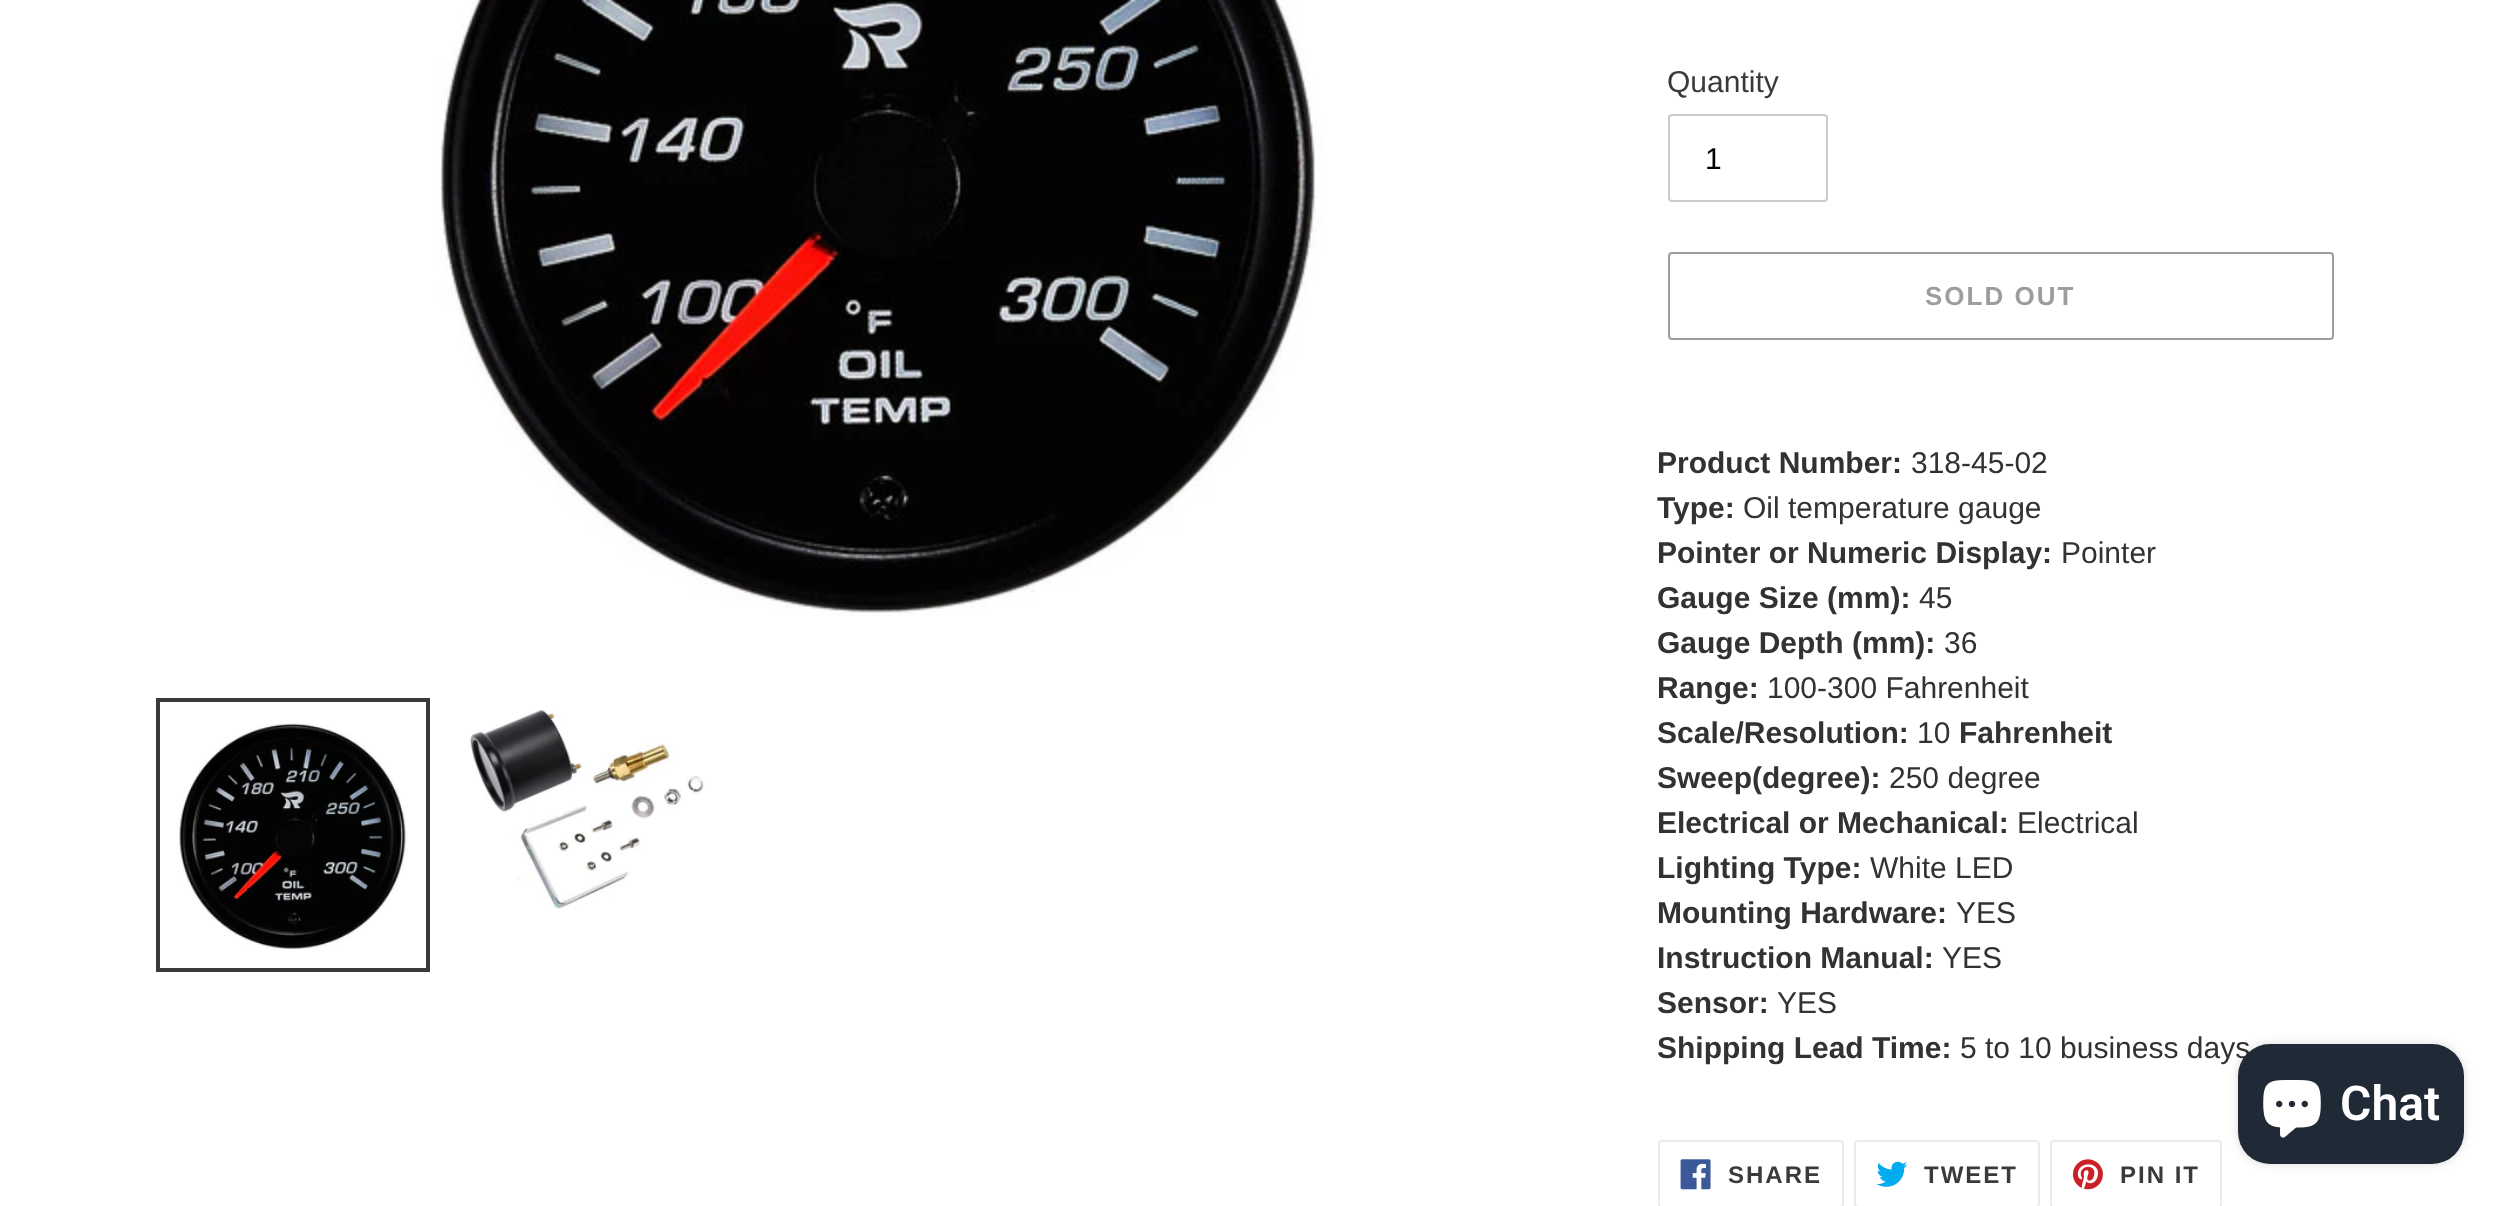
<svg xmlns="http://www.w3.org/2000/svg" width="2508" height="1206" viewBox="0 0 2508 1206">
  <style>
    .t1 { font: 30px Liberation Sans; fill: #3a3a3a; }
    .t2 { font: 30px Liberation Sans; fill: #000; }
    .t3 { font: bold 26px Liberation Sans; letter-spacing: 2px; fill: #9d9d9d; }
    .t4 { font: bold 30px Liberation Sans; fill: #333232; }
    .t5 { font: 30px Liberation Sans; fill: #333232; }
    .t6 { font: bold 24px Liberation Sans; letter-spacing: 2px; fill: #3a3a3a; }
    .t7 { font: 600 48px Roboto; fill: #fff; }
  </style>
  <rect width="100%" height="100%" fill="#fff"/>
  <image x="439" y="0" width="885" height="616" href="images/1.png"/>
  <rect x="158" y="700" width="270" height="270" fill="none" stroke="#3a3a3a" stroke-width="4"/>
  <image x="178" y="723" width="230" height="227" href="images/2.png"/>
  <image x="469" y="709" width="236" height="200" href="images/3.png"/>
  <text x="1667" y="92" class="t1">Quantity</text>
  <rect x="1669" y="115" width="158" height="86" rx="3" fill="none" stroke="#ccc" stroke-width="2"/>
  <text x="1705" y="169" class="t2">1</text>
  <rect x="1669" y="253" width="664" height="86" rx="3" fill="none" stroke="#9d9d9d" stroke-width="2"/>
  <text x="1925" y="305" class="t3">SOLD OUT</text>
  <text x="1657" y="473" class="t4">Product Number:</text>
  <text x="1911" y="473" class="t5">318-45-02</text>
  <text x="1657" y="518" class="t4">Type:</text>
  <text x="1743" y="518" class="t5">Oil temperature gauge</text>
  <text x="1657" y="563" class="t4">Pointer or Numeric Display:</text>
  <text x="2061" y="563" class="t5">Pointer</text>
  <text x="1657" y="608" class="t4">Gauge Size (mm):</text>
  <text x="1919" y="608" class="t5">45</text>
  <text x="1657" y="653" class="t4">Gauge Depth (mm):</text>
  <text x="1944" y="653" class="t5">36</text>
  <text x="1657" y="698" class="t4">Range:</text>
  <text x="1767" y="698" class="t5">100-300 Fahrenheit</text>
  <text x="1657" y="743" class="t4">Scale/Resolution:</text>
  <text x="1917" y="743" class="t5">10</text>
  <text x="1959" y="743" class="t4">Fahrenheit</text>
  <text x="1657" y="788" class="t4">Sweep(degree):</text>
  <text x="1889" y="788" class="t5">250 degree</text>
  <text x="1657" y="833" class="t4">Electrical or Mechanical:</text>
  <text x="2017" y="833" class="t5">Electrical</text>
  <text x="1657" y="878" class="t4">Lighting Type:</text>
  <text x="1870" y="878" class="t5">White LED</text>
  <text x="1657" y="923" class="t4">Mounting Hardware:</text>
  <text x="1956" y="923" class="t5">YES</text>
  <text x="1657" y="968" class="t4">Instruction Manual:</text>
  <text x="1942" y="968" class="t5">YES</text>
  <text x="1657" y="1013" class="t4">Sensor:</text>
  <text x="1777" y="1013" class="t5">YES</text>
  <text x="1657" y="1058" class="t4">Shipping Lead Time:</text>
  <text x="1960" y="1058" class="t5">5 to 10 business days</text>
  <rect x="1659" y="1141" width="184" height="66" rx="3" fill="none" stroke="#ebebeb" stroke-width="2"/>
  <image x="1680" y="1159" width="31" height="31" href="images/4.png"/>
  <text x="1728" y="1183" class="t6">SHARE</text>
  <rect x="1855" y="1141" width="184" height="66" rx="3" fill="none" stroke="#ebebeb" stroke-width="2"/>
  <image x="1876" y="1161" width="32" height="26" href="images/5.png"/>
  <text x="1924" y="1183" class="t6">TWEET</text>
  <rect x="2051" y="1141" width="170" height="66" rx="3" fill="none" stroke="#ebebeb" stroke-width="2"/>
  <image x="2072" y="1159" width="31" height="31" href="images/6.png"/>
  <text x="2120" y="1183" class="t6">PIN IT</text>
  <rect x="2238" y="1044" width="226" height="120" rx="32" fill="#00000026" filter="blur(5px)"/>
  <rect x="2238" y="1044" width="226" height="120" rx="32" fill="#202a36"/>
  <image x="2263" y="1080" width="58" height="58" href="images/7.png"/>
  <text x="2340" y="1120" class="t7">Chat</text>
</svg>
